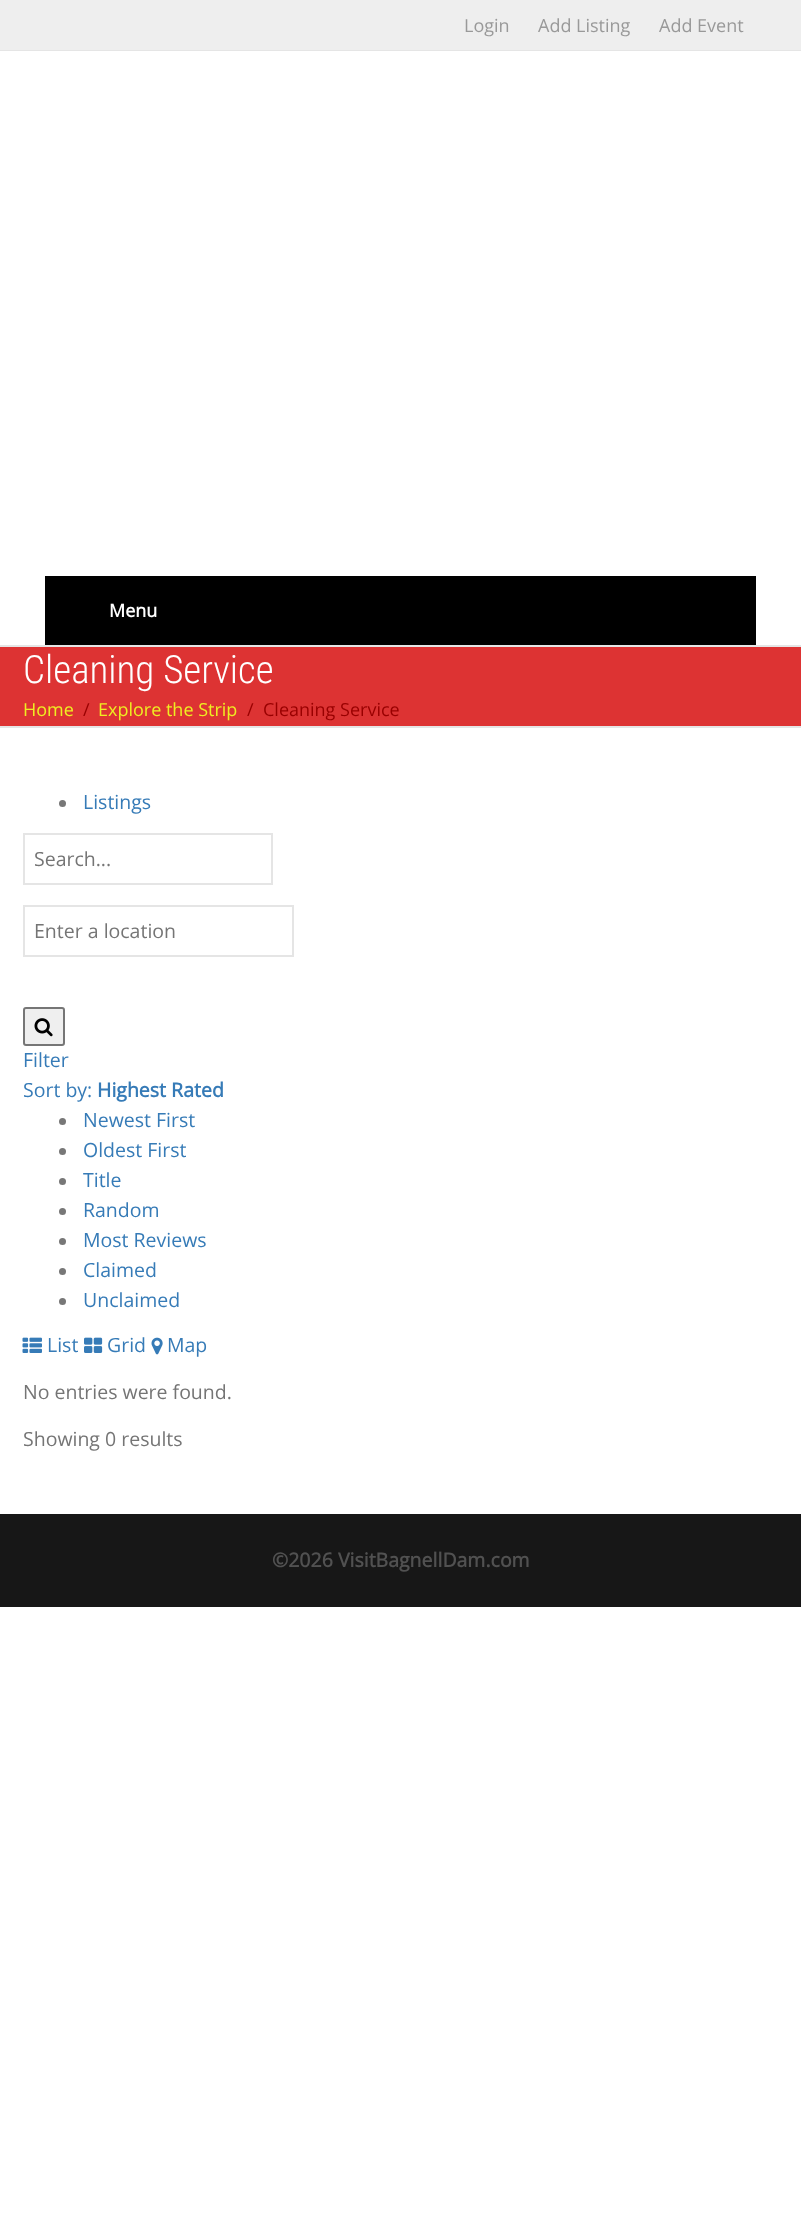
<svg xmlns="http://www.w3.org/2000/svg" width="801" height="2219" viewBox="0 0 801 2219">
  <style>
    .t1 { font: 18px Open Sans; fill: #999; }
    .t2 { font: bold 18px Open Sans; fill: #fff; }
    .t3 { font: 300 39px Roboto Condensed; fill: #fff; }
    .t4 { font: 18px Open Sans; fill: #ee2; }
    .t5 { font: 18px Open Sans; fill: #900; }
    .t6 { font: 19.5px Open Sans; fill: #367bb7; }
    .t7 { font: 19.5px Open Sans; fill: #757575; }
    .t8 { font: bold 19.5px Open Sans; fill: #367bb7; }
    .t9 { font: bold 19.5px Open Sans; fill: #515151; }
  </style>
  <rect width="100%" height="100%" fill="#fff"/>
  <rect x="0" y="0" width="801" height="50" fill="#eee"/>
  <rect x="0" y="50" width="801" height="1" fill="#e5e5e5"/>
  <text x="464" y="32" class="t1">Login</text>
  <text x="538" y="32" class="t1">Add Listing</text>
  <text x="659" y="32" class="t1">Add Event</text>
  <rect x="0" y="645" width="801" height="2" fill="#e5e5e5"/>
  <rect x="45" y="576" width="711" height="69" fill="#000"/>
  <text x="109" y="617" class="t2">Menu</text>
  <rect x="0" y="647" width="801" height="79" fill="#d33"/>
  <rect x="0" y="726" width="801" height="2" fill="#e5e5e5"/>
  <text x="23" y="683" class="t3">Cleaning Service</text>
  <text x="23" y="716" class="t4">Home</text>
  <text x="83" y="716" class="t5">/</text>
  <text x="98" y="716" class="t4">Explore the Strip</text>
  <text x="247" y="716" class="t5">/</text>
  <text x="263" y="716" class="t5">Cleaning Service</text>
  <circle cx="62.5" cy="803.5" r="3.5" fill="#777"/>
  <text x="83" y="809" class="t6">Listings</text>
  <rect x="24" y="834" width="248" height="50" fill="none" stroke="#e5e5e5" stroke-width="2"/>
  <text x="34" y="866" class="t7">Search...</text>
  <rect x="24" y="906" width="269" height="50" fill="none" stroke="#e5e5e5" stroke-width="2"/>
  <text x="34" y="938" class="t7">Enter a location</text>
  <rect x="24" y="1008" width="40" height="37" rx="2" fill="#efefef" stroke="#767676" stroke-width="2"/>
  <image x="34" y="1018" width="19" height="19" href="images/1.png"/>
  <text x="23" y="1067" class="t6">Filter</text>
  <text x="23" y="1097" class="t6">Sort by:</text>
  <text x="97" y="1097" class="t8">Highest Rated</text>
  <circle cx="62.5" cy="1121.5" r="3.5" fill="#777"/>
  <text x="83" y="1127" class="t6">Newest First</text>
  <circle cx="62.5" cy="1151.5" r="3.5" fill="#777"/>
  <text x="83" y="1157" class="t6">Oldest First</text>
  <circle cx="62.5" cy="1181.5" r="3.5" fill="#777"/>
  <text x="83" y="1187" class="t6">Title</text>
  <circle cx="62.5" cy="1211.5" r="3.5" fill="#777"/>
  <text x="83" y="1217" class="t6">Random</text>
  <circle cx="62.5" cy="1241.5" r="3.5" fill="#777"/>
  <text x="83" y="1247" class="t6">Most Reviews</text>
  <circle cx="62.5" cy="1271.5" r="3.5" fill="#777"/>
  <text x="83" y="1277" class="t6">Claimed</text>
  <circle cx="62.5" cy="1301.5" r="3.5" fill="#777"/>
  <text x="83" y="1307" class="t6">Unclaimed</text>
  <image x="22" y="1337" width="20" height="16" href="images/2.png"/>
  <text x="47" y="1352" class="t6">List</text>
  <image x="84" y="1337" width="19" height="16" href="images/3.png"/>
  <text x="107" y="1352" class="t6">Grid</text>
  <image x="151" y="1337" width="12" height="18" href="images/4.png"/>
  <text x="167" y="1352" class="t6">Map</text>
  <text x="23" y="1399" class="t7">No entries were found.</text>
  <text x="23" y="1446" class="t7">Showing 0 results</text>
  <rect x="0" y="1514" width="801" height="93" fill="#171717"/>
  <text x="272" y="1567" class="t9">©2026 VisitBagnellDam.com</text>
</svg>
